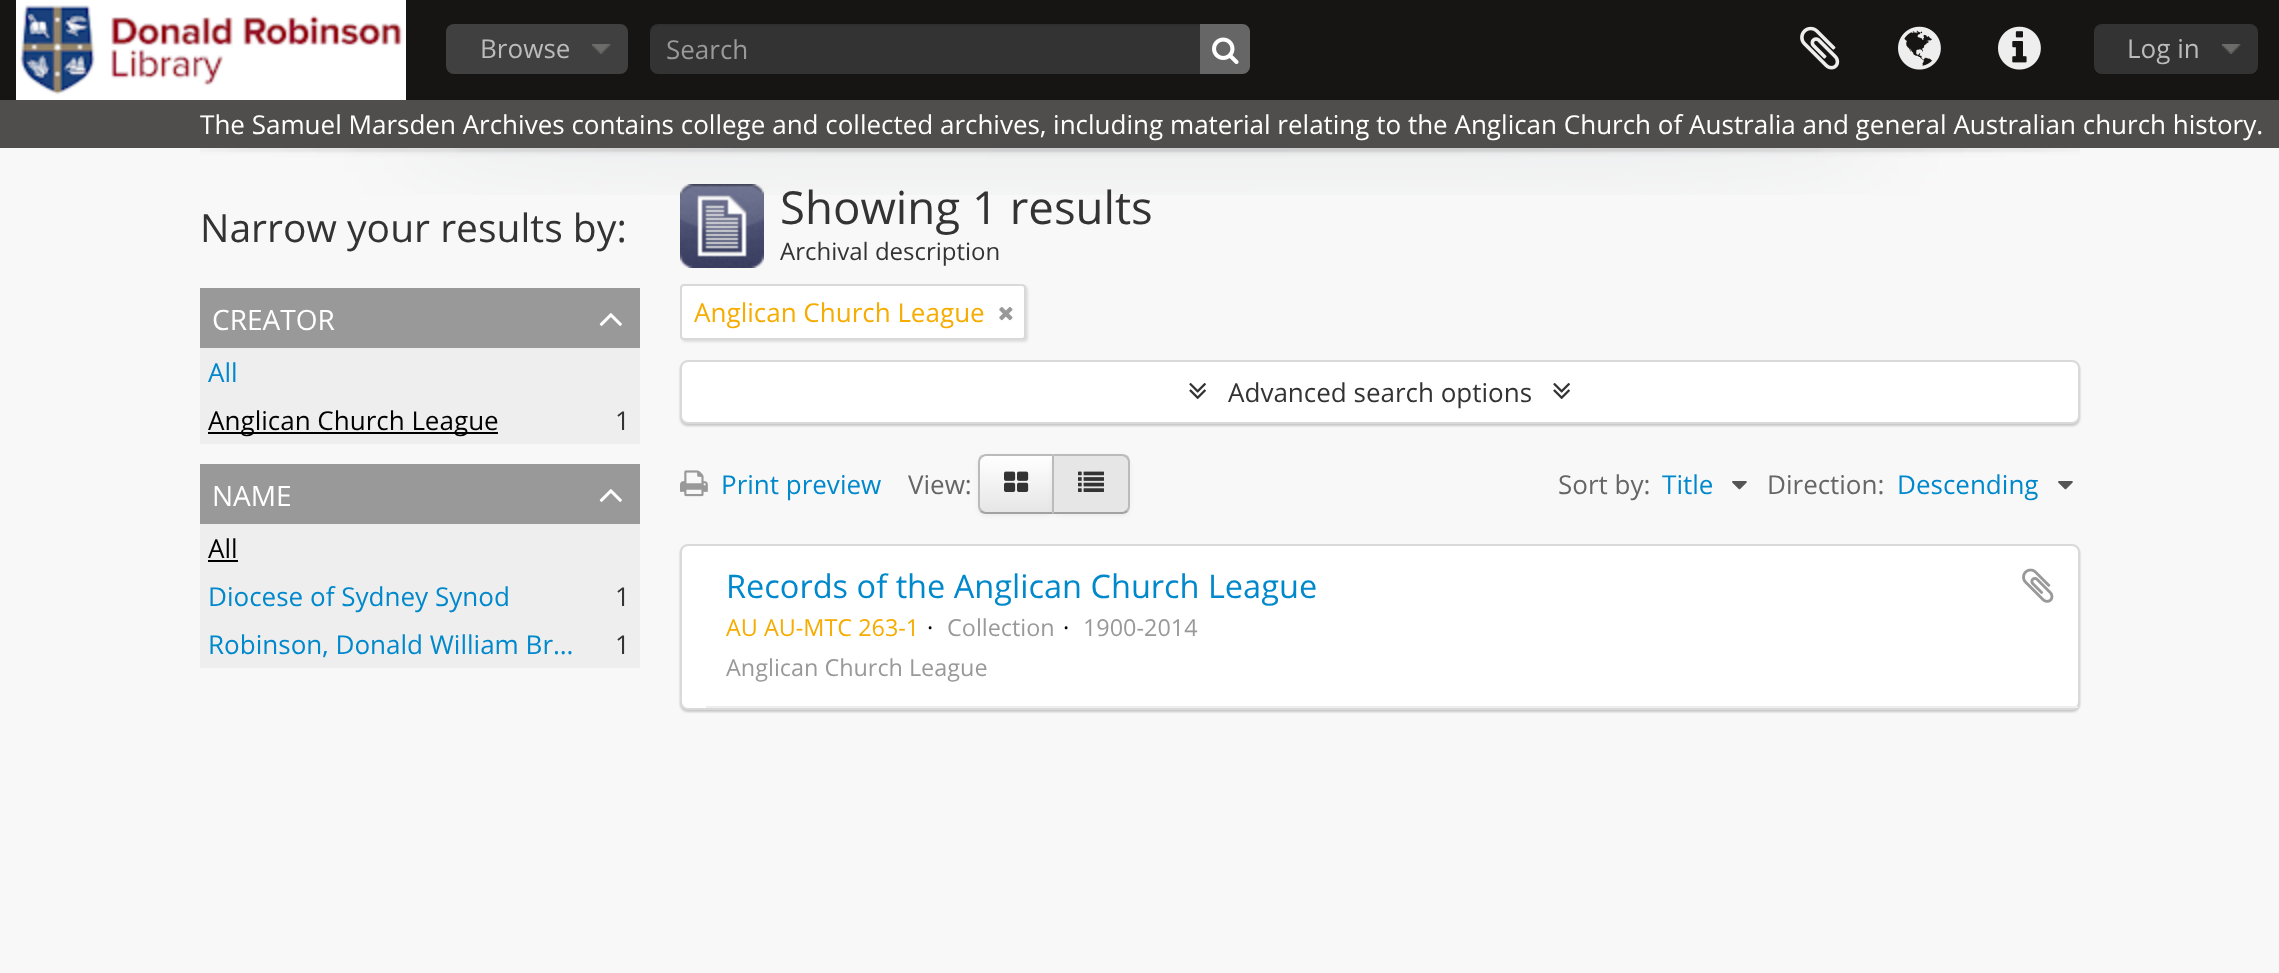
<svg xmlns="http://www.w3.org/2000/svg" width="2279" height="973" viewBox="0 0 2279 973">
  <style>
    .t1 { font: 26px Open Sans; fill: #bbb; }
    .t2 { font: 26px Open Sans; fill: #999; }
    .t3 { font: 26px Open Sans; fill: #fff; }
    .t4 { font: 39px Open Sans; fill: #333; }
    .t5 { font: 28px Open Sans; fill: #fff; }
    .t6 { font: 26px Open Sans; fill: #08c; }
    .t7 { font: 26px Open Sans; fill: #000; }
    .t8 { font: 26px Open Sans; fill: #333; }
    .t9 { font: 45.5px Open Sans; fill: #333; }
    .t10 { font: 24px Open Sans; fill: #333; }
    .t11 { font: 26px Open Sans; fill: #f6ac00; }
    .t12 { font: 26px Open Sans; fill: #666; }
    .t13 { font: 32.5px Open Sans; fill: #08c; }
    .t14 { font: 23.4px Open Sans; fill: #f6ac00; }
    .t15 { font: 23.4px Open Sans; fill: #000; }
    .t16 { font: 23.4px Open Sans; fill: #999; }
  </style>
  <defs>
    <clipPath id="clip1"><path d="M986 454H1054V514H986C981.5 514 978 510.5 978 506V462C978 457.5 981.5 454 986 454Z"/></clipPath>
    <linearGradient id="g1" gradientUnits="userSpaceOnUse" x1="1016" y1="456" x2="1016" y2="512"><stop offset="0" stop-color="#fff"/><stop offset="1" stop-color="#e6e6e6"/></linearGradient>
  </defs>
  <rect width="100%" height="100%" fill="#f8f8f8"/>
  <rect x="0" y="0" width="2279" height="100" fill="#161514"/>
  <image x="16" y="0" width="390" height="100" href="images/1.png"/>
  <rect x="446" y="24" width="182" height="50" rx="8" fill="#404040"/>
  <image x="592" y="44" width="19" height="10" href="images/2.png"/>
  <text x="480" y="58" class="t1">Browse</text>
  <rect x="650" y="24" width="600" height="50" rx="8" fill="#333"/>
  <path d="M658 26H1242C1246 26 1250 30 1250 34C1250 29 1248 24 1242 24H658C652 24 650 29 650 34C650 30 654 26 658 26Z" fill="#00000012"/>
  <text x="666" y="59" class="t2">Search</text>
  <path d="M1200 24H1242C1246.5 24 1250 27.5 1250 32V66C1250 70.5 1246.5 74 1242 74H1200Z" fill="#666"/>
  <image x="1212" y="37" width="27" height="28" href="images/3.png"/>
  <image x="1800" y="26" width="40" height="44" href="images/4.png"/>
  <image x="1898" y="26" width="43" height="44" href="images/5.png"/>
  <image x="1998" y="26" width="43" height="44" href="images/6.png"/>
  <rect x="2094" y="24" width="164" height="50" rx="8" fill="#333"/>
  <image x="2222" y="44" width="19" height="10" href="images/7.png"/>
  <text x="2127" y="58" class="t1">Log in</text>
  <rect x="0" y="100" width="2279" height="48" fill="#4f4e4d"/>
  <text x="200" y="134" class="t3">The Samuel Marsden Archives contains college and collected archives, including material relating to the Anglican Church of Australia and general Australian church history.</text>
  <image x="200" y="148" width="1880" height="47" href="images/8.png"/>
  <text x="200" y="242" class="t4">Narrow your results by:</text>
  <rect x="200" y="288" width="440" height="60" fill="#999"/>
  <text x="212" y="330" class="t5">CREATOR</text>
  <image x="599" y="313" width="23" height="13" href="images/9.png"/>
  <rect x="200" y="348" width="440" height="96" fill="#eee"/>
  <text x="208" y="382" class="t6">All</text>
  <rect x="208" y="432" width="290" height="2" fill="#000"/>
  <text x="208" y="430" class="t7">Anglican Church League</text>
  <text x="615" y="430" class="t8">1</text>
  <rect x="200" y="464" width="440" height="60" fill="#999"/>
  <text x="212" y="506" class="t5">NAME</text>
  <image x="599" y="489" width="23" height="13" href="images/9.png"/>
  <rect x="200" y="524" width="440" height="144" fill="#eee"/>
  <text x="208" y="558" class="t7">All</text>
  <rect x="208" y="560" width="30" height="2" fill="#000"/>
  <text x="208" y="606" class="t6">Diocese of Sydney Synod</text>
  <text x="615" y="606" class="t8">1</text>
  <text x="208" y="654" class="t6">Robinson, Donald William Br…</text>
  <text x="615" y="654" class="t8">1</text>
  <image x="680" y="184" width="84" height="84" href="images/10.png"/>
  <text x="780" y="224" class="t9">Showing 1 results</text>
  <text x="780" y="260" class="t10">Archival description</text>
  <rect x="682" y="286" width="346" height="56" rx="4" fill="#0000001a" filter="blur(1px)"/>
  <rect x="681" y="285" width="344" height="54" rx="3" fill="#fff" stroke="#d9d9d9" stroke-width="2"/>
  <text x="694" y="322" class="t11">Anglican Church League</text>
  <image x="999" y="307" width="14" height="14" href="images/11.png"/>
  <rect x="680" y="362" width="1400" height="64" rx="8" fill="#00000033" filter="blur(1px)"/>
  <rect x="681" y="361" width="1398" height="62" rx="7" fill="#fff" stroke="#d9d9d9" stroke-width="2"/>
  <image x="1189" y="383" width="17" height="17" href="images/12.png"/>
  <text x="1228" y="402" class="t8">Advanced search options</text>
  <image x="1553" y="383" width="17" height="17" href="images/12.png"/>
  <image x="680" y="470" width="28" height="27" href="images/13.png"/>
  <text x="721" y="494" class="t6">Print preview</text>
  <text x="908" y="494" class="t12">View:</text>
  <rect x="978" y="456" width="76" height="60" rx="8" fill="#0000000d" filter="blur(2px)"/>
  <g clip-path="url(#clip1)">
    <rect x="978" y="456" width="74" height="56" fill="url(#g1)"/>
  </g>
  <path d="M986 454C984 454 982 455 980 456L982 458C983 457 984 456 986 456H1052L1054 454Z" fill="#bbb"/>
  <path d="M1054 514L1052 512H986C984 512 983 511 982 510L980 512C982 513 984 514 986 514Z" fill="#a2a2a2"/>
  <path d="M978 462V506C978 508 979 510 980 512L982 510C981 509 980 508 980 506V462C980 460 981 459 982 458L980 456C979 458 978 460 978 462Z" fill="#bbb"/>
  <image x="1004" y="471" width="25" height="21" href="images/14.png"/>
  <rect x="1052" y="456" width="78" height="60" rx="8" fill="#0000000d" filter="blur(2px)"/>
  <path d="M1052 454H1122C1126.5 454 1130 457.5 1130 462V506C1130 510.5 1126.5 514 1122 514H1052Z" fill="#e6e6e6"/>
  <path d="M1052 454L1054 456H1122C1124 456 1125 457 1126 458L1128 456C1126 455 1124 454 1122 454Z" fill="#bbb"/>
  <path d="M1130 506V462C1130 460 1129 458 1128 456L1126 458C1127 459 1128 460 1128 462V506C1128 508 1127 509 1126 510L1128 512C1129 510 1130 508 1130 506Z" fill="#bbb"/>
  <path d="M1122 514C1124 514 1126 513 1128 512L1126 510C1125 511 1124 512 1122 512H1054L1052 514Z" fill="#a2a2a2"/>
  <path d="M1052 454V514L1054 512V456Z" fill="#bbb"/>
  <image x="1078" y="471" width="26" height="21" href="images/15.png"/>
  <text x="1558" y="494" class="t12">Sort by:</text>
  <text x="1662" y="494" class="t6">Title</text>
  <image x="1732" y="481" width="15" height="9" href="images/16.png"/>
  <text x="1767" y="494" class="t12">Direction:</text>
  <text x="1897" y="494" class="t6">Descending</text>
  <image x="2058" y="481" width="15" height="9" href="images/16.png"/>
  <rect x="680" y="546" width="1400" height="166" rx="8" fill="#00000033" filter="blur(1px)"/>
  <rect x="681" y="545" width="1398" height="164" rx="7" fill="#fff" stroke="#d9d9d9" stroke-width="2"/>
  <rect x="706" y="706" width="1372" height="2" fill="#eee"/>
  <text x="726" y="598" class="t13">Records of the Anglican Church League</text>
  <image x="2022" y="568" width="32" height="35" href="images/17.png"/>
  <text x="726" y="636" class="t14">AU AU-MTC 263-1</text>
  <text x="927" y="636" class="t15">·</text>
  <text x="947" y="636" class="t16">Collection</text>
  <text x="1063" y="636" class="t15">·</text>
  <text x="1083" y="636" class="t16">1900-2014</text>
  <text x="726" y="676" class="t16">Anglican Church League</text>
</svg>
